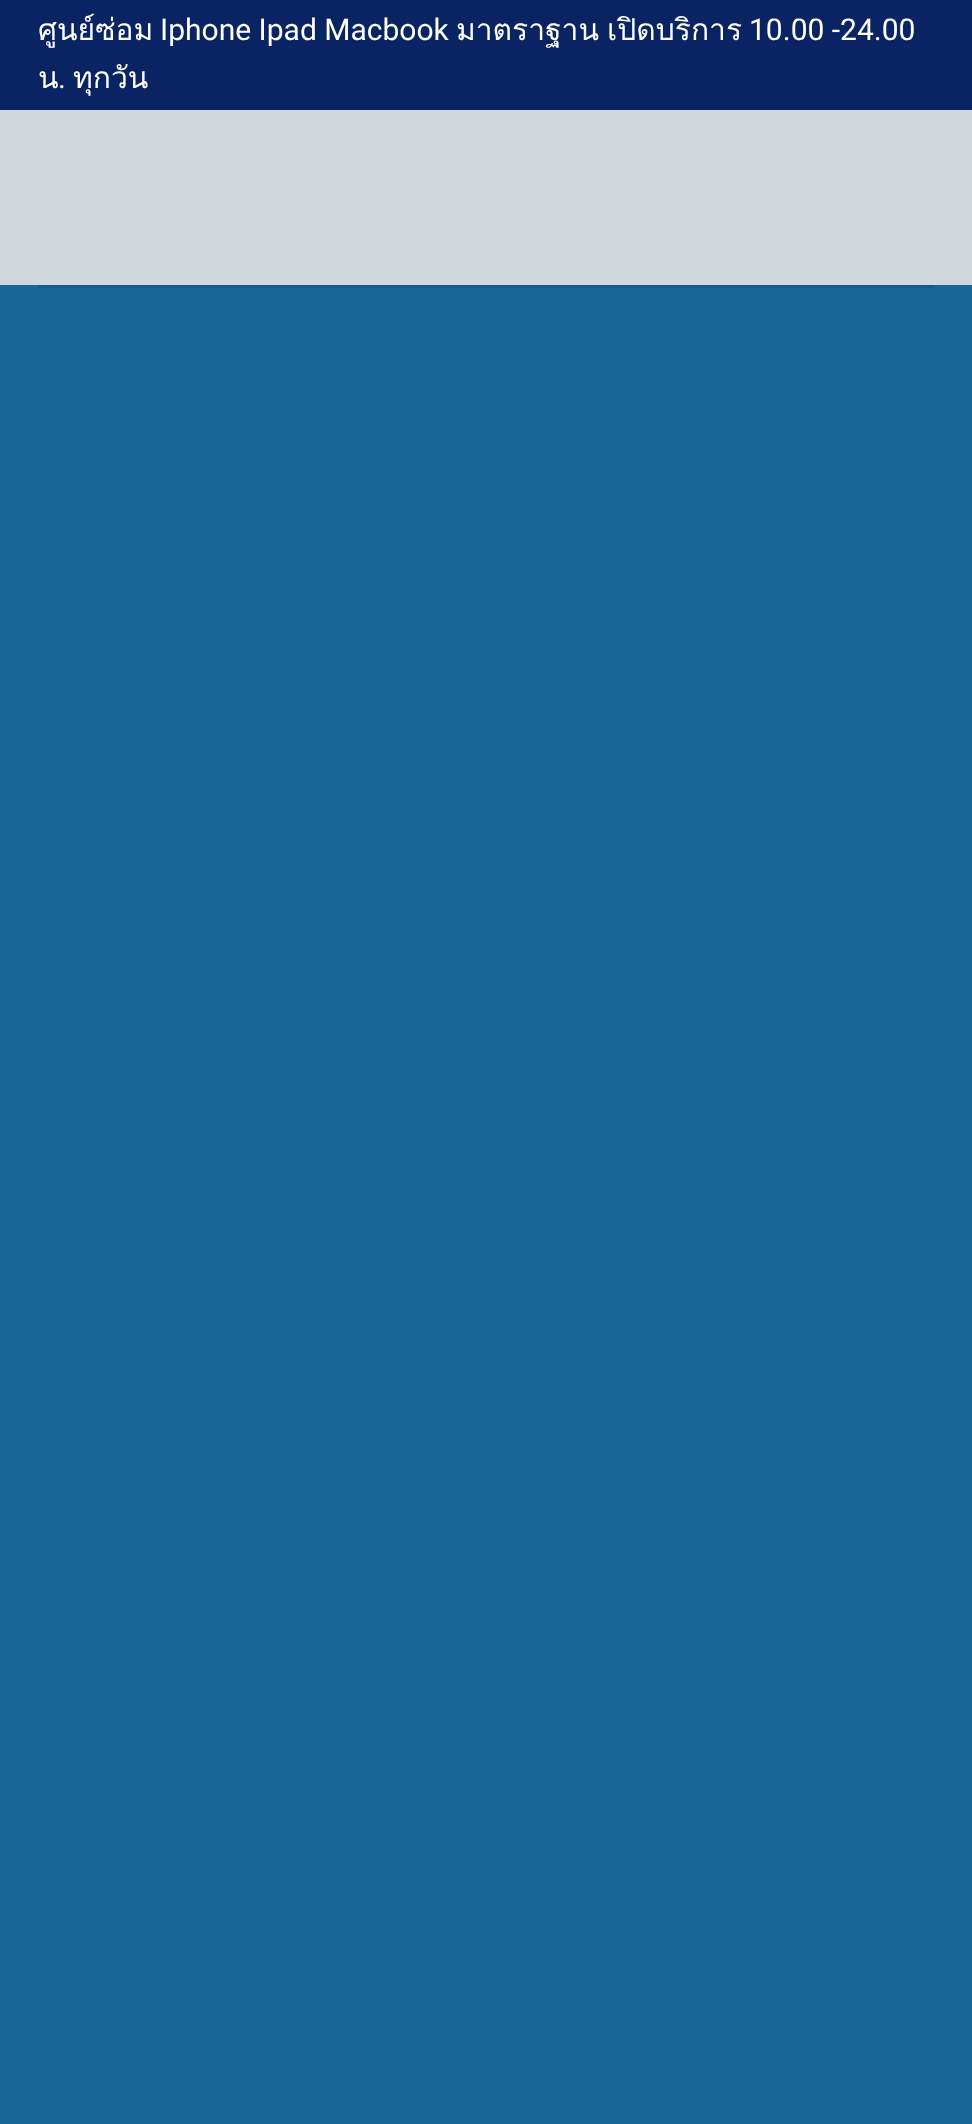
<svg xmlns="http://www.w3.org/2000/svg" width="972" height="2124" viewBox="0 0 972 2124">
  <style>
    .t1 { font: 30px Loma; fill: #fff; }
    .t2 { font: 30px Roboto; fill: #fff; }
  </style>
  <rect width="100%" height="100%" fill="#176698"/>
  <rect x="0" y="0" width="972" height="110" fill="#0a2463"/>
  <text x="38" y="40" class="t1">ศูนย์ซ่อม</text>
  <text x="160" y="40" class="t2">Iphone Ipad Macbook</text>
  <text x="456" y="40" class="t1">มาตราฐาน</text>
  <text x="607" y="40" class="t1">เปิดบริการ</text>
  <text x="749" y="40" class="t2">10.00 -24.00</text>
  <text x="38" y="88" class="t1">น</text>
  <text x="58" y="88" class="t2">.</text>
  <text x="73" y="88" class="t1">ทุกวัน</text>
  <rect x="0" y="110" width="972" height="175" fill="#d0d8dd"/>
  <rect x="38" y="285" width="897" height="3" fill="#155c89"/>
</svg>
